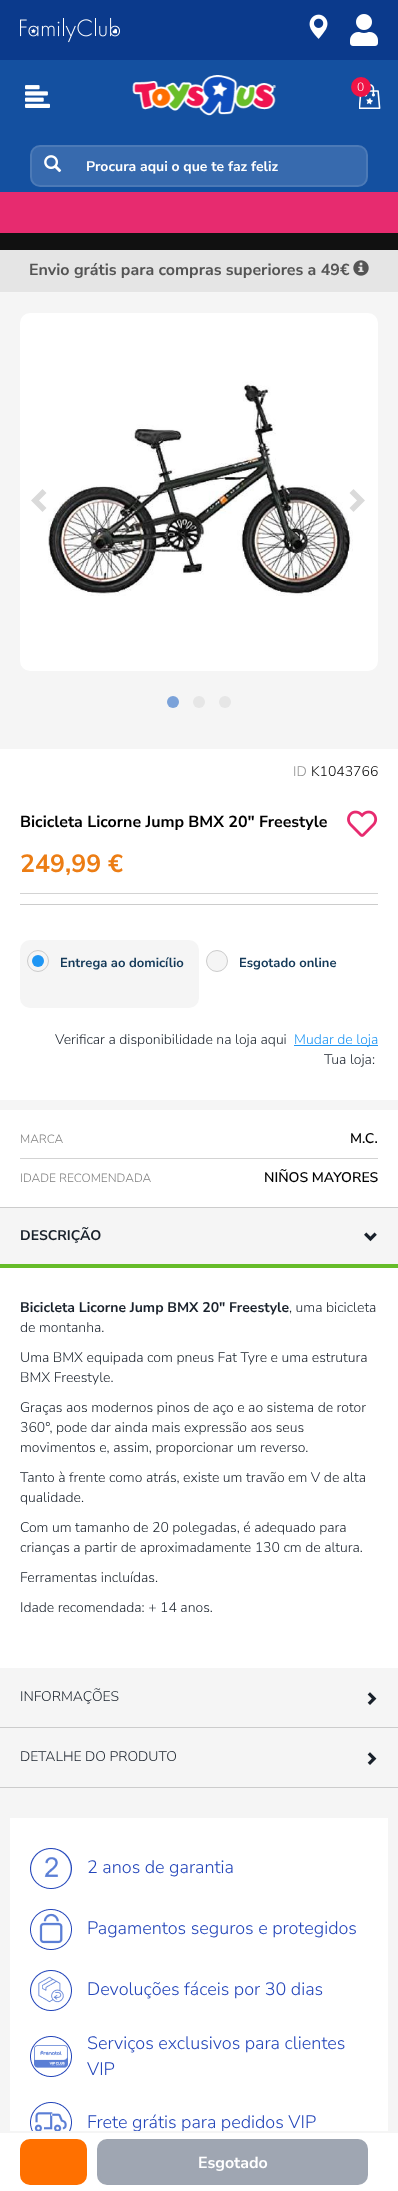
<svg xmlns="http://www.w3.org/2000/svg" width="398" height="2191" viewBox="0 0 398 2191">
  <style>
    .t1 { font: 300 12px Nunito Sans; fill: #fff; }
    .t2 { font: bold 14px Nunito Sans; fill: #fff; }
    .t3 { font: bold 16px Nunito Sans; fill: #545454; }
    .t4 { font: 300 14px Nunito Sans; fill: #929292; }
    .t5 { font: 300 14px Nunito Sans; fill: #000; }
    .t6 { font: bold 16px Nunito Sans; fill: #000; }
    .t7 { font: bold 25px Nunito Sans; fill: #ec7d14; }
    .t8 { font: bold 13px Nunito Sans; fill: #153a59; }
    .t9 { font: 300 14px Nunito Sans; fill: #19212b; }
    .t10 { font: 300 14px Nunito Sans; fill: #1f96f4; }
    .t11 { font: 300 18px Nunito Sans; fill: #2446ba; }
    .t12 { font: bold 16px Nunito Sans; fill: #fff; }
    .t13 { font: 300 12px Nunito Sans; fill: #808080; }
    .t14 { font: 600 14px Nunito Sans; fill: #000; }
    .t15 { font: bold 14px Nunito Sans; fill: #19212b; }
  </style>
  <rect width="100%" height="100%" fill="#111"/>
  <rect x="0" y="60" width="398" height="132" fill="#1450a0"/>
  <rect x="0" y="0" width="398" height="60" fill="#0b3a8c"/>
  <image x="20" y="17" width="100" height="26" href="images/1.png"/>
  <image x="309" y="14" width="19" height="25" href="images/2.png"/>
  <image x="350" y="14" width="28" height="32" href="images/3.png"/>
  <image x="25" y="85" width="25" height="23" href="images/4.png"/>
  <image x="132" y="75" width="144" height="41" href="images/5.png"/>
  <image x="359" y="84" width="22" height="25" href="images/6.png"/>
  <circle cx="361" cy="87" r="10" fill="#f01446"/>
  <text x="357" y="91" class="t1">0</text>
  <rect x="31" y="146" width="336" height="40" rx="9" fill="#376aae" stroke="#4c7ab7" stroke-width="2"/>
  <image x="44" y="155" width="18" height="18" href="images/7.png"/>
  <text x="86" y="171" class="t2">Procura aqui o que te faz feliz</text>
  <rect x="0" y="292" width="398" height="1" fill="#f6f6f6"/>
  <rect x="0" y="192" width="398" height="41" fill="#e72b6f"/>
  <rect x="0" y="250" width="398" height="42" fill="#e5e5e5"/>
  <text x="29" y="275" class="t3">Envio grátis para compras superiores a 49€</text>
  <image x="353" y="260" width="16" height="16" href="images/8.png"/>
  <rect x="0" y="293" width="398" height="1838" fill="#f5f5f5"/>
  <rect x="20" y="313" width="358" height="358" rx="10" fill="#fff"/>
  <image x="48" y="381" width="305" height="215" href="images/9.png"/>
  <path d="M46.5 493L39 500.5L46.5 508L42.5 512L31 500.5L42.5 489Z" fill="#dadada"/>
  <path d="M365 500.5L353.5 512L349.5 508L357 500.5L349.5 493L353.5 489Z" fill="#dadada"/>
  <circle cx="173" cy="702" r="6" fill="#7ba2d9"/>
  <circle cx="199" cy="702" r="6" fill="#e6e6e6"/>
  <circle cx="225" cy="702" r="6" fill="#e6e6e6"/>
  <rect x="0" y="749" width="398" height="351" fill="#fff"/>
  <text x="293" y="776" class="t4">ID</text>
  <text x="311" y="776" class="t5">K1043766</text>
  <text x="20" y="827" class="t6">Bicicleta Licorne Jump BMX 20" Freestyle</text>
  <image x="347" y="810" width="31" height="27" href="images/10.png"/>
  <rect x="20" y="893" width="358" height="1" fill="#d3d3d3"/>
  <text x="20" y="872" class="t7">249,99 €</text>
  <rect x="20" y="904" width="358" height="1" fill="#ccc"/>
  <rect x="20" y="940" width="179" height="68" rx="10" fill="#f5f5f5"/>
  <circle cx="38" cy="961" r="10.5" fill="none" stroke="#ccc"/>
  <circle cx="38" cy="961" r="6" fill="#1f96f4"/>
  <text x="60" y="967" class="t8">Entrega ao domicílio</text>
  <circle cx="217" cy="961" r="10.5" fill="#f5f5f5" stroke="#ccc"/>
  <text x="239" y="967" class="t8">Esgotado online</text>
  <text x="55" y="1044" class="t9">Verificar a disponibilidade na loja aqui</text>
  <rect x="294" y="1045" width="84" height="1" fill="#1f96f4"/>
  <text x="294" y="1044" class="t10">Mudar de loja</text>
  <text x="324" y="1064" class="t9">Tua loja:</text>
  <rect x="0" y="2133" width="398" height="58" fill="#fff"/>
  <rect x="10" y="1818" width="378" height="313" fill="#fff"/>
  <text x="87" y="2128" class="t11">Frete grátis para pedidos VIP</text>
  <rect x="0" y="2131" width="398" height="2" fill="#f5f5f5"/>
  <rect x="21.5" y="2140.5" width="64" height="43" rx="8.5" fill="#ff7000" stroke="#ff7000" stroke-width="3"/>
  <rect x="98.5" y="2140.5" width="268" height="43" rx="8.5" fill="#9fa6b2" stroke="#9fa6b2" stroke-width="3"/>
  <text x="198" y="2168" class="t12">Esgotado</text>
  <rect x="0" y="1110" width="398" height="97" fill="#fff"/>
  <rect x="20" y="1158" width="358" height="1" fill="#d3d3d3"/>
  <text x="20" y="1143" class="t13">MARCA</text>
  <text x="350" y="1143" class="t14">M.C.</text>
  <text x="20" y="1182" class="t13">IDADE RECOMENDADA</text>
  <text x="264" y="1182" class="t14">NIÑOS MAYORES</text>
  <rect x="0" y="1207" width="398" height="1" fill="#ccc"/>
  <rect x="0" y="1264" width="398" height="4" fill="#66bc29"/>
  <text x="20" y="1240" class="t15">DESCRIÇÃO</text>
  <image x="364" y="1232" width="13" height="10" href="images/11.png"/>
  <rect x="0" y="1268" width="398" height="400" fill="#fff"/>
  <text x="20" y="1312" class="t15">Bicicleta Licorne Jump BMX 20" Freestyle</text>
  <text x="289" y="1312" class="t9">, uma bicicleta</text>
  <text x="20" y="1332" class="t9">de montanha.</text>
  <text x="20" y="1362" class="t9">Uma BMX equipada com pneus Fat Tyre e uma estrutura</text>
  <text x="20" y="1382" class="t9">BMX Freestyle.</text>
  <text x="20" y="1412" class="t9">Graças aos modernos pinos de aço e ao sistema de rotor</text>
  <text x="20" y="1432" class="t9">360°, pode dar ainda mais expressão aos seus</text>
  <text x="20" y="1452" class="t9">movimentos e, assim, proporcionar um reverso.</text>
  <text x="20" y="1482" class="t9">Tanto à frente como atrás, existe um travão em V de alta</text>
  <text x="20" y="1502" class="t9">qualidade.</text>
  <text x="20" y="1532" class="t9">Com um tamanho de 20 polegadas, é adequado para</text>
  <text x="20" y="1552" class="t9">crianças a partir de aproximadamente 130 cm de altura.</text>
  <text x="20" y="1582" class="t9">Ferramentas incluídas.</text>
  <text x="20" y="1612" class="t9">Idade recomendada: + 14 anos.</text>
  <rect x="0" y="1727" width="398" height="1" fill="#ccc"/>
  <text x="20" y="1701" class="t9">INFORMAÇÕES</text>
  <image x="367" y="1692" width="10" height="13" href="images/12.png"/>
  <rect x="0" y="1787" width="398" height="1" fill="#ccc"/>
  <text x="20" y="1761" class="t9">DETALHE DO PRODUTO</text>
  <image x="367" y="1752" width="10" height="13" href="images/12.png"/>
  <image x="30" y="1848" width="42" height="41" href="images/13.png"/>
  <text x="87" y="1873" class="t11">2 anos de garantia</text>
  <image x="30" y="1909" width="42" height="41" href="images/14.png"/>
  <text x="87" y="1934" class="t11">Pagamentos seguros e protegidos</text>
  <image x="30" y="1970" width="42" height="41" href="images/15.png"/>
  <text x="87" y="1995" class="t11">Devoluções fáceis por 30 dias</text>
  <image x="30" y="2036" width="42" height="41" href="images/16.png"/>
  <text x="87" y="2049" class="t11">Serviços exclusivos para clientes</text>
  <text x="87" y="2075" class="t11">VIP</text>
  <image x="30" y="2102" width="42" height="29" href="images/17.png"/>
</svg>
